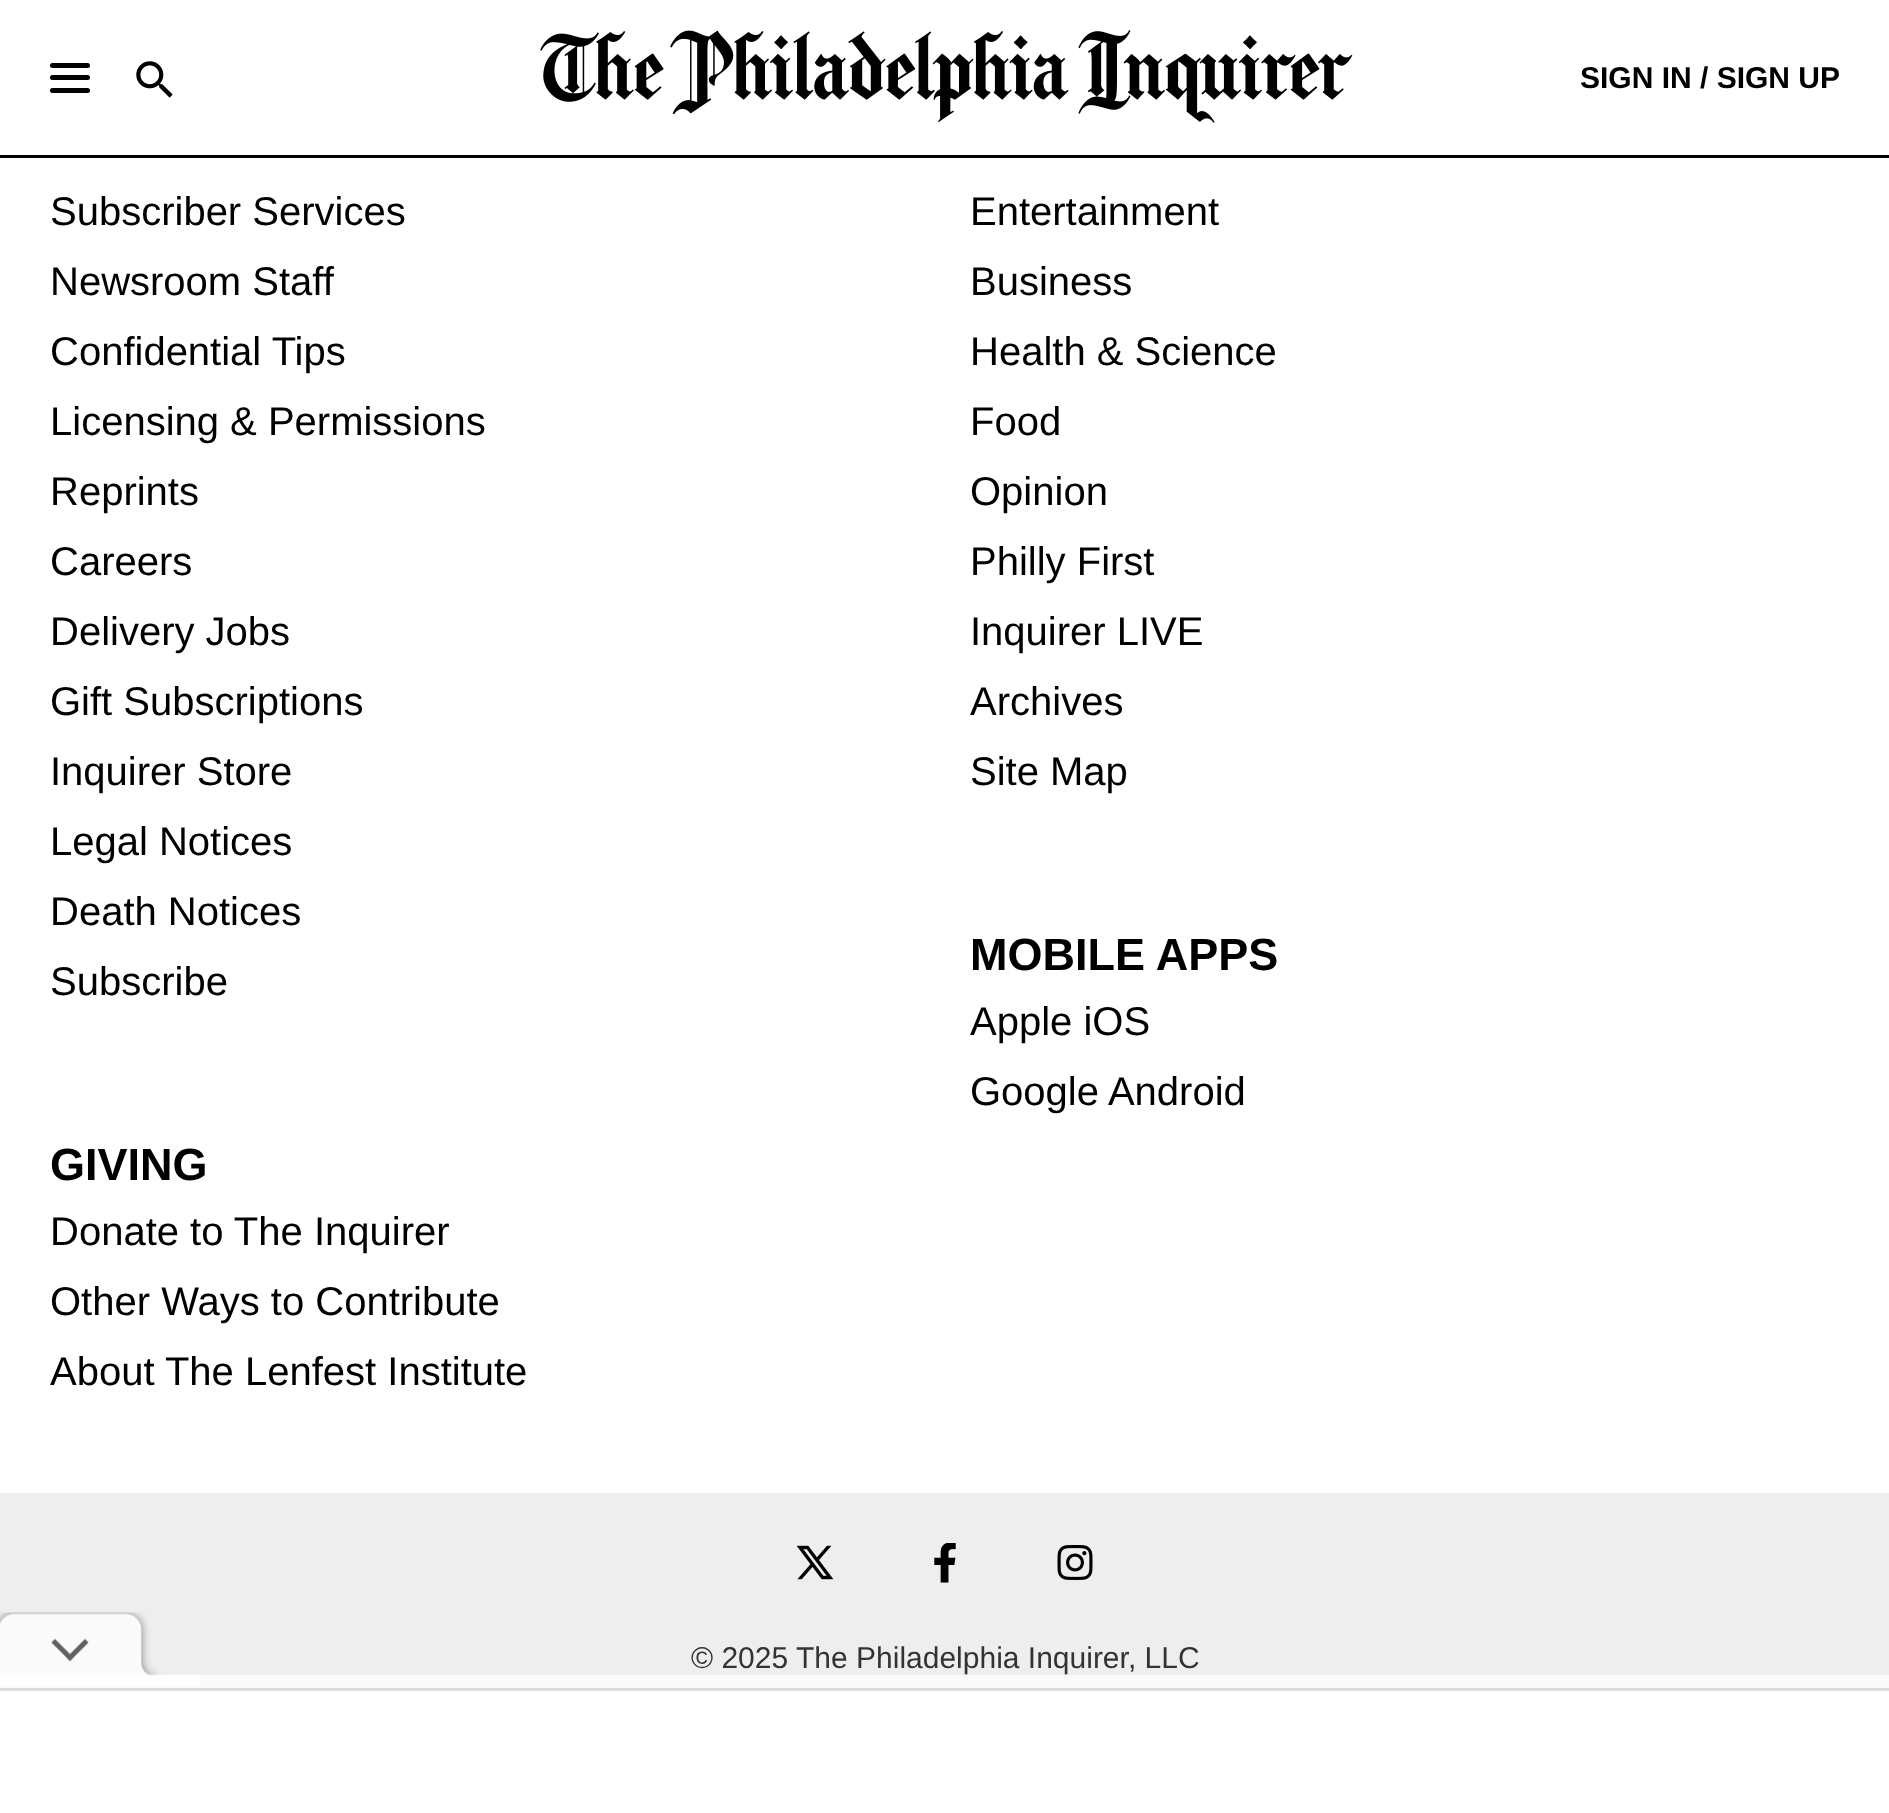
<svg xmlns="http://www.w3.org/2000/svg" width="1889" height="1813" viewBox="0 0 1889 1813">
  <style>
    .t1 { font: bold 30px Liberation Sans; fill: #000; }
    .t2 { font: 40px Liberation Sans; fill: #000; }
    .t3 { font: bold 45px Liberation Sans; fill: #000; }
    .t4 { font: 30px Liberation Sans; fill: #333; }
  </style>
  <rect width="100%" height="100%" fill="#fff"/>
  <rect x="0" y="155" width="1889" height="3" fill="#000"/>
  <rect x="50" y="63" width="40" height="5" rx="2.5" fill="#000"/>
  <rect x="50" y="75" width="40" height="5" rx="2.5" fill="#000"/>
  <rect x="50" y="88" width="40" height="5" rx="2.5" fill="#000"/>
  <image x="136" y="61" width="37" height="37" href="images/1.png"/>
  <image x="540" y="30" width="813" height="93" href="images/2.png"/>
  <text x="1580" y="88" class="t1">SIGN IN / SIGN UP</text>
  <text x="50" y="225" class="t2">Subscriber Services</text>
  <text x="50" y="295" class="t2">Newsroom Staff</text>
  <text x="50" y="365" class="t2">Confidential Tips</text>
  <text x="50" y="435" class="t2">Licensing &amp; Permissions</text>
  <text x="50" y="505" class="t2">Reprints</text>
  <text x="50" y="575" class="t2">Careers</text>
  <text x="50" y="645" class="t2">Delivery Jobs</text>
  <text x="50" y="715" class="t2">Gift Subscriptions</text>
  <text x="50" y="785" class="t2">Inquirer Store</text>
  <text x="50" y="855" class="t2">Legal Notices</text>
  <text x="50" y="925" class="t2">Death Notices</text>
  <text x="50" y="995" class="t2">Subscribe</text>
  <text x="50" y="1180" class="t3">GIVING</text>
  <text x="50" y="1245" class="t2">Donate to The Inquirer</text>
  <text x="50" y="1315" class="t2">Other Ways to Contribute</text>
  <text x="50" y="1385" class="t2">About The Lenfest Institute</text>
  <text x="970" y="225" class="t2">Entertainment</text>
  <text x="970" y="295" class="t2">Business</text>
  <text x="970" y="365" class="t2">Health &amp; Science</text>
  <text x="970" y="435" class="t2">Food</text>
  <text x="970" y="505" class="t2">Opinion</text>
  <text x="970" y="575" class="t2">Philly First</text>
  <text x="970" y="645" class="t2">Inquirer LIVE</text>
  <text x="970" y="715" class="t2">Archives</text>
  <text x="970" y="785" class="t2">Site Map</text>
  <text x="970" y="970" class="t3">MOBILE APPS</text>
  <text x="970" y="1035" class="t2">Apple iOS</text>
  <text x="970" y="1105" class="t2">Google Android</text>
  <rect x="0" y="1493" width="1889" height="182" fill="#eee"/>
  <image x="796" y="1545" width="38" height="35" href="images/3.png"/>
  <image x="934" y="1543" width="22" height="40" href="images/4.png"/>
  <image x="1057" y="1545" width="36" height="35" href="images/5.png"/>
  <text x="691" y="1668" class="t4">© 2025</text>
  <text x="796" y="1668" class="t4">The Philadelphia Inquirer, LLC</text>
  <rect x="0" y="1675" width="1889" height="13" fill="#fafafa"/>
  <image x="0" y="1612" width="200" height="75" href="images/6.png"/>
  <rect x="0" y="1688" width="1889" height="3" fill="#dcdcdc"/>
</svg>
